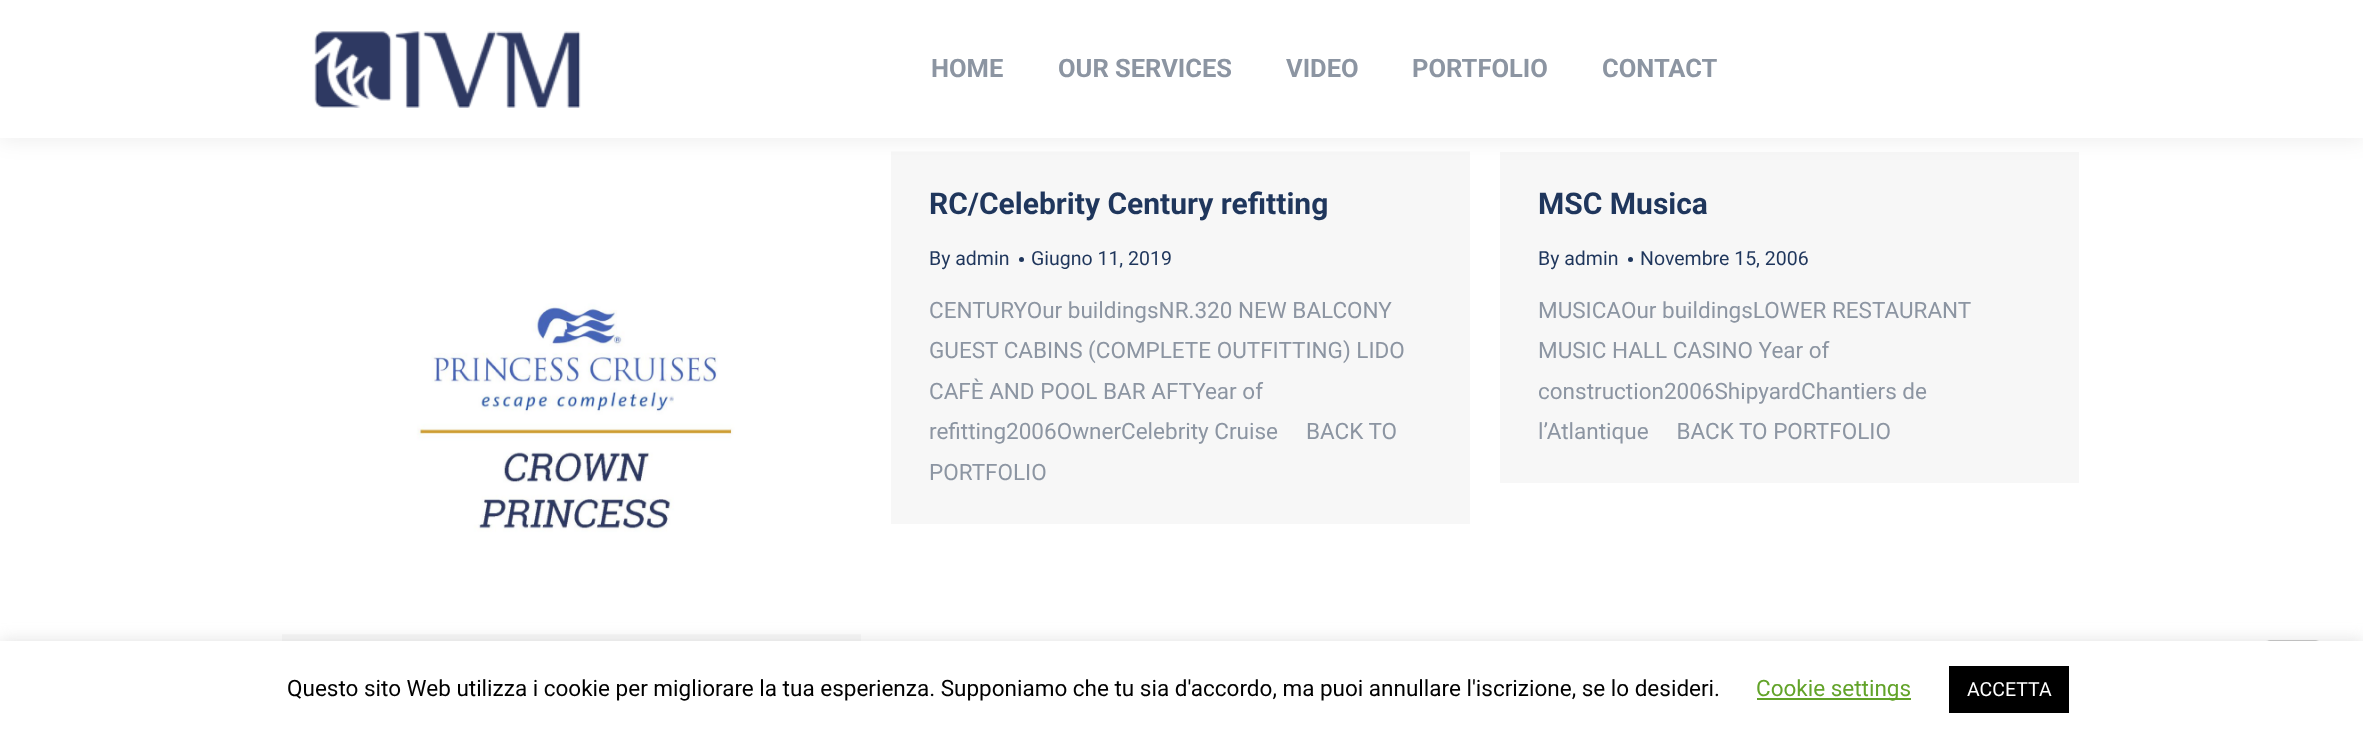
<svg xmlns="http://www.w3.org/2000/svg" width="2363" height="737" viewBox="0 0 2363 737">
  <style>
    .t1 { font: bold 25.5px Roboto; fill: #8c95a2; }
    .t2 { font: bold 30px Roboto; fill: #1f365c; }
    .t3 { font: 19.5px Roboto; fill: #1f365c; }
    .t4 { font: 22.5px Roboto; fill: #8c95a2; }
    .t5 { font: 22.5px Roboto; fill: #000; }
    .t6 { font: 22.5px Roboto; fill: #62a329; }
    .t7 { font: 19.5px Roboto; fill: #fff; }
  </style>
  <rect width="100%" height="100%" fill="#fff"/>
  <rect x="282" y="634" width="579" height="1" fill="#f2f3f3"/>
  <image x="282" y="138" width="579" height="497" href="images/2.png"/>
  <rect x="891" y="151" width="579" height="373" fill="#f7f7f7"/>
  <image x="891" y="138" width="579" height="14" href="images/3.png"/>
  <rect x="1500" y="152" width="579" height="331" fill="#f7f7f7"/>
  <rect x="-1" y="-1" width="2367" height="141" fill="#00000012" filter="blur(11px)"/>
  <rect x="0" y="0" width="2363" height="138" fill="#fff"/>
  <image x="314" y="31" width="267" height="77" href="images/1.png"/>
  <text x="931" y="77" class="t1">HOME</text>
  <text x="1058" y="77" class="t1">OUR SERVICES</text>
  <text x="1286" y="77" class="t1">VIDEO</text>
  <text x="1412" y="77" class="t1">PORTFOLIO</text>
  <text x="1602" y="77" class="t1">CONTACT</text>
  <rect x="282" y="635" width="579" height="6" fill="#f7f7f7"/>
  <text x="929" y="214" class="t2">RC/Celebrity Century refitting</text>
  <text x="929" y="265" class="t3">By admin</text>
  <circle cx="1021.5" cy="259.5" r="2.5" fill="#1f365c"/>
  <text x="1031" y="265" class="t3">Giugno 11, 2019</text>
  <text x="929" y="318" class="t4">CENTURYOur buildingsNR.320 NEW BALCONY</text>
  <text x="929" y="358" class="t4">GUEST CABINS (COMPLETE OUTFITTING) LIDO</text>
  <text x="929" y="399" class="t4">CAFÈ AND POOL BAR AFTYear of</text>
  <text x="929" y="439" class="t4" xml:space="preserve">refitting2006OwnerCelebrity Cruise     BACK TO</text>
  <text x="929" y="480" class="t4">PORTFOLIO</text>
  <text x="1538" y="214" class="t2">MSC Musica</text>
  <text x="1538" y="265" class="t3">By admin</text>
  <circle cx="1630.5" cy="259.5" r="2.5" fill="#1f365c"/>
  <text x="1640" y="265" class="t3">Novembre 15, 2006</text>
  <text x="1538" y="318" class="t4">MUSICAOur buildingsLOWER RESTAURANT</text>
  <text x="1538" y="358" class="t4">MUSIC HALL CASINO Year of</text>
  <text x="1538" y="399" class="t4">construction2006ShipyardChantiers de</text>
  <text x="1538" y="439" class="t4" xml:space="preserve">l’Atlantique     BACK TO PORTFOLIO</text>
  <image x="1500" y="512" width="579" height="129" href="images/4.png"/>
  <image x="2266" y="640" width="53" height="1" href="images/5.png"/>
  <rect x="0" y="639" width="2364" height="98" fill="#acabab4d" filter="blur(7.5px)"/>
  <rect x="0" y="641" width="2363" height="96" fill="#fff"/>
  <text x="287" y="696" class="t5">Questo sito Web utilizza i cookie per migliorare la tua esperienza. Supponiamo che tu sia d'accordo, ma puoi annullare l'iscrizione, se lo desideri.</text>
  <rect x="1757" y="698" width="154" height="2" fill="#62a329"/>
  <text x="1756" y="696" class="t6">Cookie settings</text>
  <rect x="1949" y="666" width="120" height="47" fill="#000"/>
  <text x="1967" y="696" class="t7">ACCETTA</text>
</svg>
